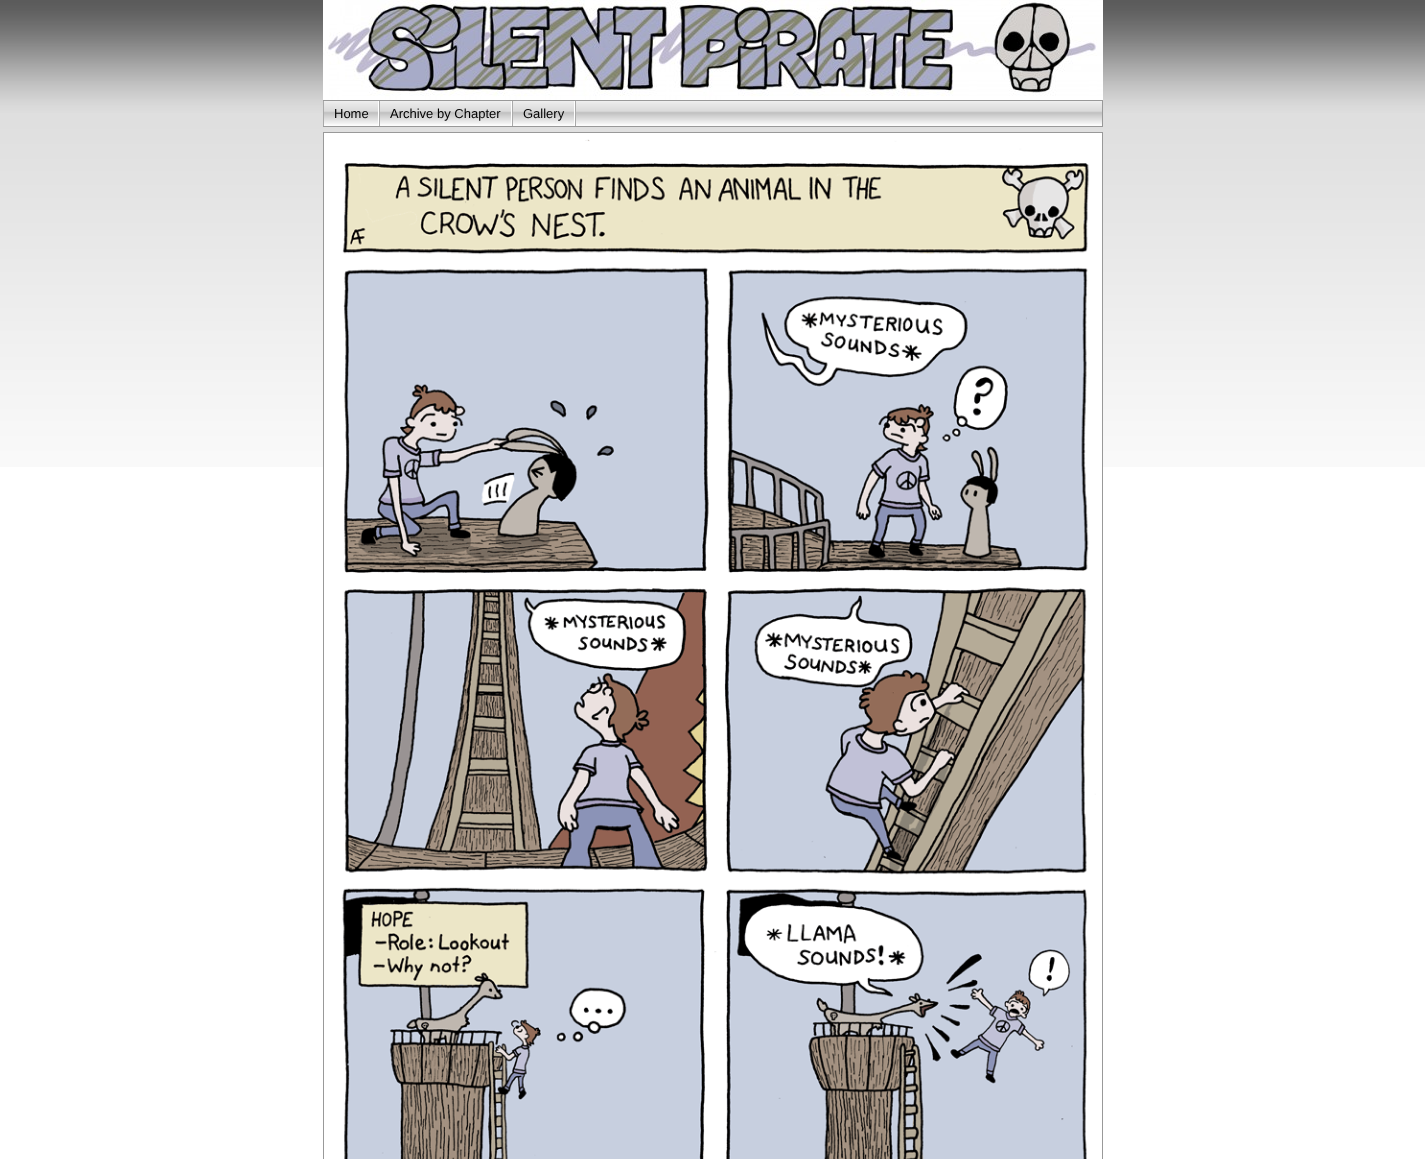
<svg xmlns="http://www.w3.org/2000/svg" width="1425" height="1159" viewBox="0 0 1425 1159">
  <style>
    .t1 { font: 13px Liberation Sans; fill: #000; }
  </style>
  <rect width="100%" height="100%" fill="#fff"/>
  <image x="0" y="0" width="1425" height="467" href="images/1.png"/>
  <image x="323" y="0" width="780" height="100" href="images/2.png"/>
  <image x="324" y="101" width="778" height="25" href="images/3.png"/>
  <rect x="323" y="100" width="780" height="1" fill="#999"/>
  <rect x="1102" y="100" width="1" height="27" fill="#999"/>
  <rect x="323" y="126" width="780" height="1" fill="#999"/>
  <rect x="575" y="101" width="1" height="25" fill="#aaa"/>
  <rect x="378" y="101" width="1" height="25" fill="#fff"/>
  <rect x="323" y="101" width="1" height="25" fill="#aaa"/>
  <text x="334" y="118" class="t1">Home</text>
  <rect x="511" y="101" width="1" height="25" fill="#fff"/>
  <rect x="379" y="101" width="1" height="25" fill="#aaa"/>
  <text x="390" y="118" class="t1">Archive by Chapter</text>
  <rect x="574" y="101" width="1" height="25" fill="#fff"/>
  <rect x="512" y="101" width="1" height="25" fill="#aaa"/>
  <text x="523" y="118" class="t1">Gallery</text>
  <rect x="324" y="133" width="778" height="334" fill="#fff"/>
  <rect x="323.5" y="132.5" width="779" height="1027" fill="none" stroke="#999"/>
  <image x="342" y="139" width="754" height="1020" href="images/4.png"/>
</svg>
